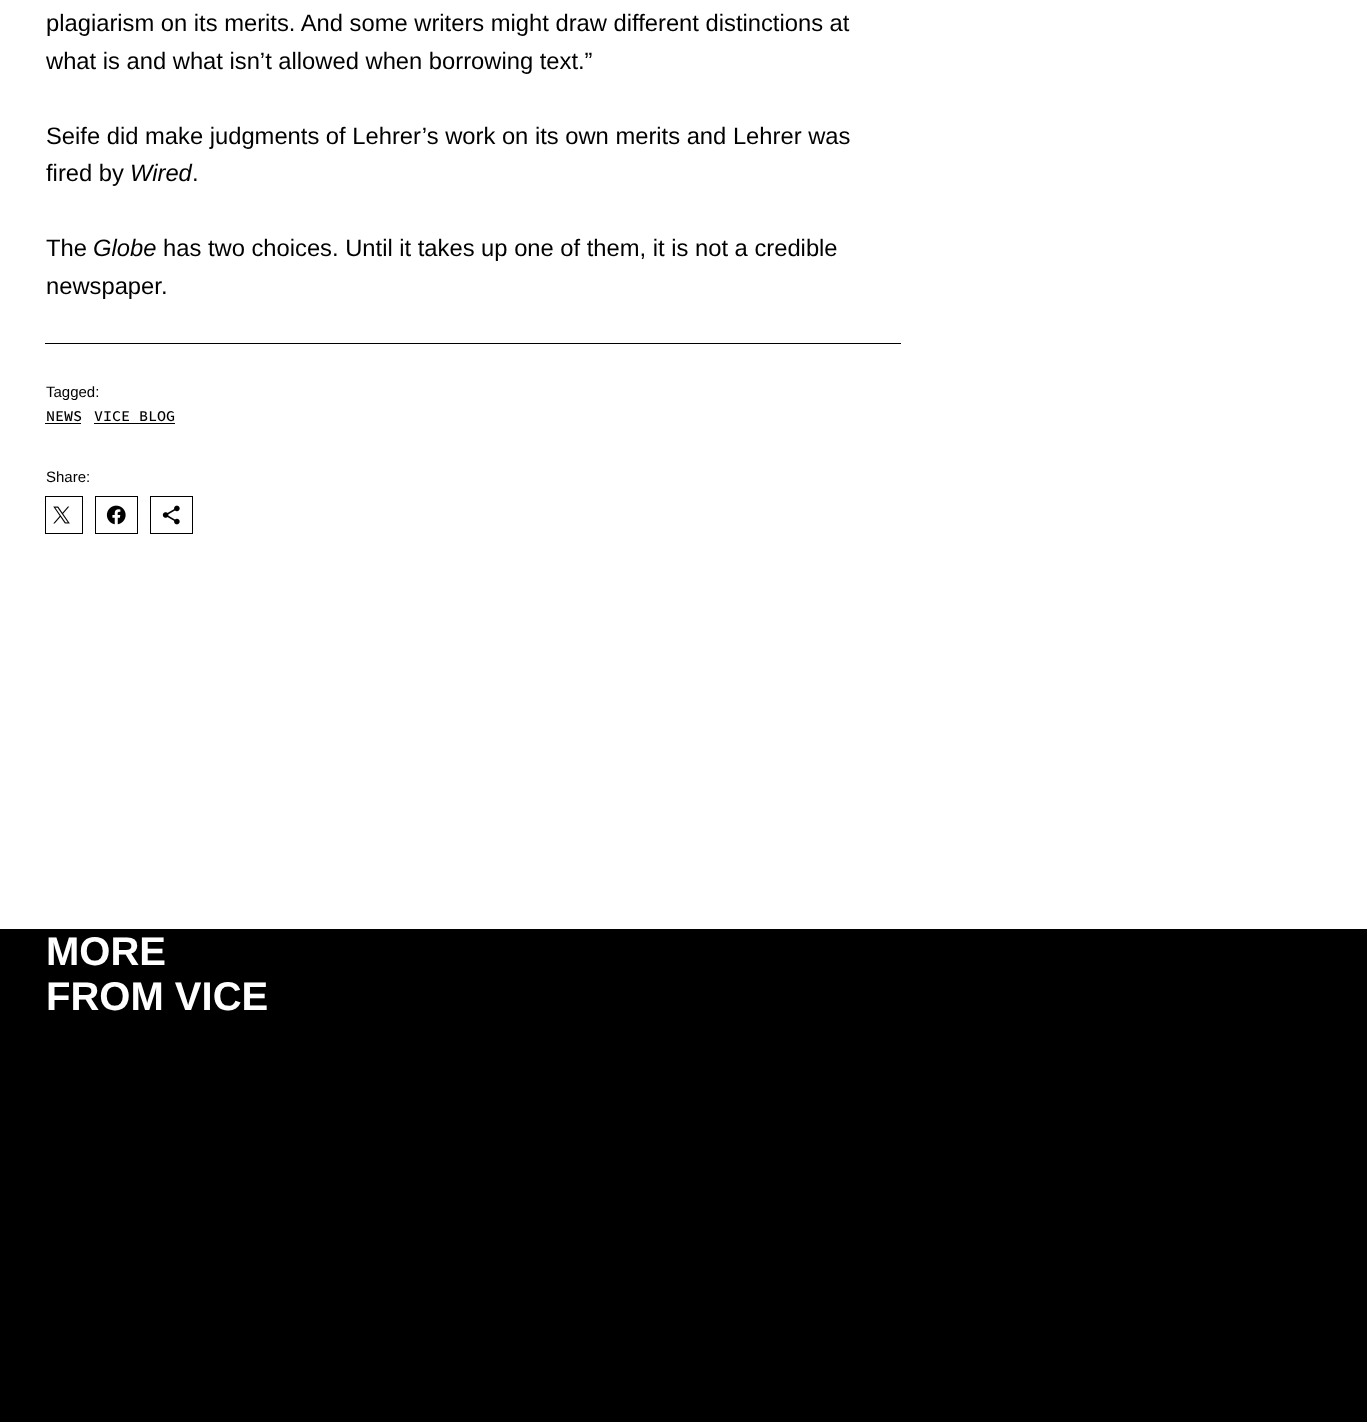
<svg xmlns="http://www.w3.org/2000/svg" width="1367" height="1422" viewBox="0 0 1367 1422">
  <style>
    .t1 { font: 23.75px Liberation Sans; fill: #000; }
    .t2 { font: italic 23.75px Liberation Sans; fill: #000; }
    .t3 { font: 15px Liberation Sans; fill: #000; }
    .t4 { font: 500 15px Source Code Pro; fill: #000; }
    .t5 { font: bold 40px Liberation Sans; fill: #fff; }
  </style>
  <rect width="100%" height="100%" fill="#fff"/>
  <text x="46" y="31" class="t1">plagiarism on its merits. And some writers might draw different distinctions at</text>
  <text x="46" y="69" class="t1">what is and what isn’t allowed when borrowing text.”</text>
  <text x="46" y="144" class="t1">Seife did make judgments of Lehrer’s work on its own merits and Lehrer was</text>
  <text x="46" y="181" class="t1">fired by</text>
  <text x="130" y="181" class="t2">Wired</text>
  <text x="192" y="181" class="t1">.</text>
  <text x="46" y="256" class="t1">The</text>
  <text x="93" y="256" class="t2">Globe</text>
  <text x="163" y="256" class="t1">has two choices. Until it takes up one of them, it is not a credible</text>
  <text x="46" y="294" class="t1">newspaper.</text>
  <rect x="45" y="343" width="856" height="1" fill="#000"/>
  <text x="46" y="397" class="t3">Tagged:</text>
  <text x="46" y="421" class="t4">NEWS</text>
  <rect x="45" y="423" width="36" height="1" fill="#000"/>
  <text x="94" y="421" class="t4">VICE BLOG</text>
  <rect x="94" y="423" width="81" height="1" fill="#000"/>
  <text x="46" y="482" class="t3">Share:</text>
  <rect x="45.5" y="496.5" width="37" height="37" fill="none" stroke="#000"/>
  <image x="53" y="506" width="17" height="18" href="images/1.png"/>
  <rect x="95.5" y="496.5" width="42" height="37" fill="none" stroke="#000"/>
  <image x="106" y="505" width="20" height="20" href="images/2.png"/>
  <rect x="150.5" y="496.5" width="42" height="37" fill="none" stroke="#000"/>
  <image x="162" y="505" width="18" height="20" href="images/3.png"/>
  <rect x="0" y="929" width="1367" height="493" fill="#000"/>
  <text x="46" y="965" class="t5">MORE</text>
  <text x="46" y="1010" class="t5">FROM VICE</text>
</svg>
